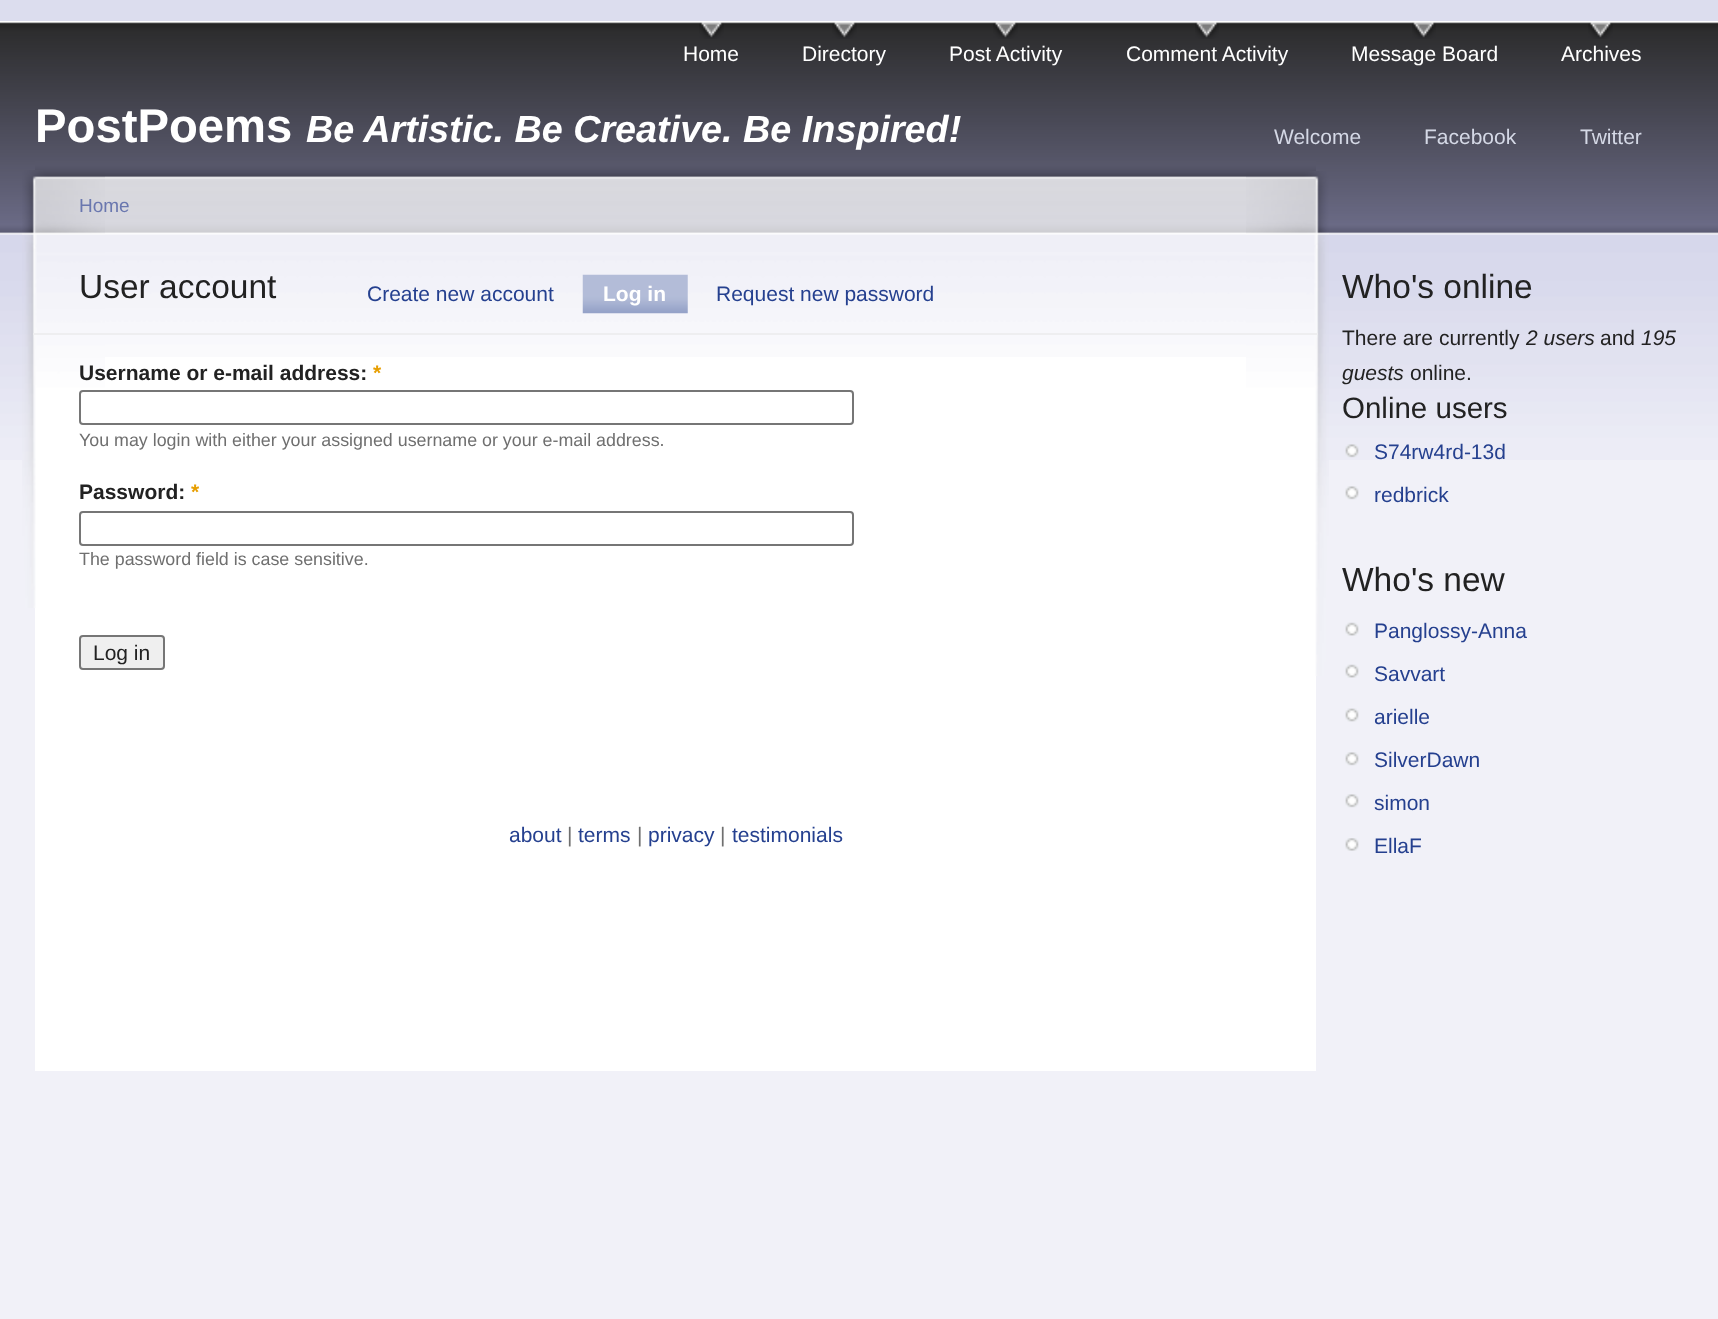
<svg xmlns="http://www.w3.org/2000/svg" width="1718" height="1319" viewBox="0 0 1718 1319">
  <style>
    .t1 { font: 21px Liberation Sans; fill: #fff; }
    .t2 { font: bold 47.25px Liberation Sans; fill: #fff; }
    .t3 { font: italic bold 37.75px Liberation Sans; fill: #fff; }
    .t4 { font: 21px Liberation Sans; fill: #d4d8e5; }
    .t5 { font: 19px Liberation Sans; fill: #6a77af; }
    .t6 { font: 33.5px Liberation Sans; fill: #222; }
    .t7 { font: 21px Liberation Sans; fill: #25408f; }
    .t8 { font: bold 21px Liberation Sans; fill: #fff; }
    .t9 { font: bold 21px Liberation Sans; fill: #222; }
    .t10 { font: bold 21px Liberation Sans; fill: #e79e00; }
    .t11 { font: 17.85px Liberation Sans; fill: #6f6f6f; }
    .t12 { font: 21px Liberation Sans; fill: #222; }
    .t13 { font: 21px Liberation Sans; fill: #6f6f6f; }
    .t14 { font: italic 21px Liberation Sans; fill: #222; }
    .t15 { font: 29.5px Liberation Sans; fill: #222; }
  </style>
  <rect width="100%" height="100%" fill="#f1f1f8"/>
  <rect x="0" y="0" width="1718" height="21" fill="#dcddee"/>
  <image x="0" y="21" width="1718" height="439" href="images/1.png"/>
  <image x="699" y="22" width="25" height="17" href="images/2.png"/>
  <text x="683" y="61" class="t1">Home</text>
  <image x="832" y="22" width="25" height="17" href="images/2.png"/>
  <text x="802" y="61" class="t1">Directory</text>
  <image x="993" y="22" width="25" height="17" href="images/3.png"/>
  <text x="949" y="61" class="t1">Post Activity</text>
  <image x="1195" y="22" width="24" height="17" href="images/4.png"/>
  <text x="1126" y="61" class="t1">Comment Activity</text>
  <image x="1412" y="22" width="24" height="17" href="images/5.png"/>
  <text x="1351" y="61" class="t1">Message Board</text>
  <image x="1588" y="22" width="25" height="17" href="images/3.png"/>
  <text x="1561" y="61" class="t1">Archives</text>
  <text x="35" y="142" class="t2">PostPoems</text>
  <text x="306" y="142" class="t3">Be Artistic. Be Creative. Be Inspired!</text>
  <text x="1274" y="144" class="t4">Welcome</text>
  <text x="1424" y="144" class="t4">Facebook</text>
  <text x="1580" y="144" class="t4">Twitter</text>
  <rect x="35" y="357" width="1281" height="714" fill="#fff"/>
  <image x="35" y="161" width="1281" height="196" href="images/6.png"/>
  <image x="1246" y="171" width="83" height="505" href="images/7.png"/>
  <image x="22" y="170" width="83" height="438" href="images/8.png"/>
  <text x="79" y="212" class="t5">Home</text>
  <rect x="33" y="333" width="1285" height="2" fill="#eeeef0"/>
  <text x="79" y="298" class="t6">User account</text>
  <text x="367" y="301" class="t7">Create new account</text>
  <image x="582" y="274" width="106" height="40" href="images/9.png"/>
  <text x="603" y="301" class="t8">Log in</text>
  <text x="716" y="301" class="t7">Request new password</text>
  <text x="79" y="380" class="t9">Username or e-mail address:</text>
  <text x="373" y="380" class="t10">*</text>
  <rect x="80" y="391" width="773" height="33" rx="3" fill="none" stroke="#767676" stroke-width="2"/>
  <text x="79" y="446" class="t11">You may login with either your assigned username or your e-mail address.</text>
  <text x="79" y="499" class="t9">Password:</text>
  <text x="191" y="499" class="t10">*</text>
  <rect x="80" y="512" width="773" height="33" rx="3" fill="none" stroke="#767676" stroke-width="2"/>
  <text x="79" y="565" class="t11">The password field is case sensitive.</text>
  <rect x="80" y="636" width="84" height="33" rx="3" fill="#efefef" stroke="#767676" stroke-width="2"/>
  <text x="93" y="660" class="t12">Log in</text>
  <text x="509" y="842" class="t7">about</text>
  <text x="567" y="842" class="t13">|</text>
  <text x="578" y="842" class="t7">terms</text>
  <text x="637" y="842" class="t13">|</text>
  <text x="648" y="842" class="t7">privacy</text>
  <text x="720" y="842" class="t13">|</text>
  <text x="732" y="842" class="t7">testimonials</text>
  <text x="1342" y="298" class="t6">Who's online</text>
  <text x="1342" y="345" class="t12">There are currently</text>
  <text x="1526" y="345" class="t14">2 users</text>
  <text x="1600" y="345" class="t12">and</text>
  <text x="1641" y="345" class="t14">195</text>
  <text x="1342" y="380" class="t14">guests</text>
  <text x="1410" y="380" class="t12">online.</text>
  <text x="1342" y="418" class="t15">Online users</text>
  <image x="1345" y="444" width="14" height="14" href="images/10.png"/>
  <text x="1374" y="459" class="t7">S74rw4rd-13d</text>
  <image x="1345" y="486" width="14" height="14" href="images/11.png"/>
  <text x="1374" y="502" class="t7">redbrick</text>
  <text x="1342" y="591" class="t6">Who's new</text>
  <image x="1345" y="622" width="14" height="14" href="images/12.png"/>
  <text x="1374" y="638" class="t7">Panglossy-Anna</text>
  <image x="1345" y="664" width="14" height="14" href="images/12.png"/>
  <text x="1374" y="681" class="t7">Savvart</text>
  <image x="1345" y="708" width="14" height="14" href="images/13.png"/>
  <text x="1374" y="724" class="t7">arielle</text>
  <image x="1345" y="752" width="14" height="14" href="images/11.png"/>
  <text x="1374" y="767" class="t7">SilverDawn</text>
  <image x="1345" y="794" width="14" height="14" href="images/11.png"/>
  <text x="1374" y="810" class="t7">simon</text>
  <image x="1345" y="838" width="14" height="13" href="images/14.png"/>
  <text x="1374" y="853" class="t7">EllaF</text>
</svg>
